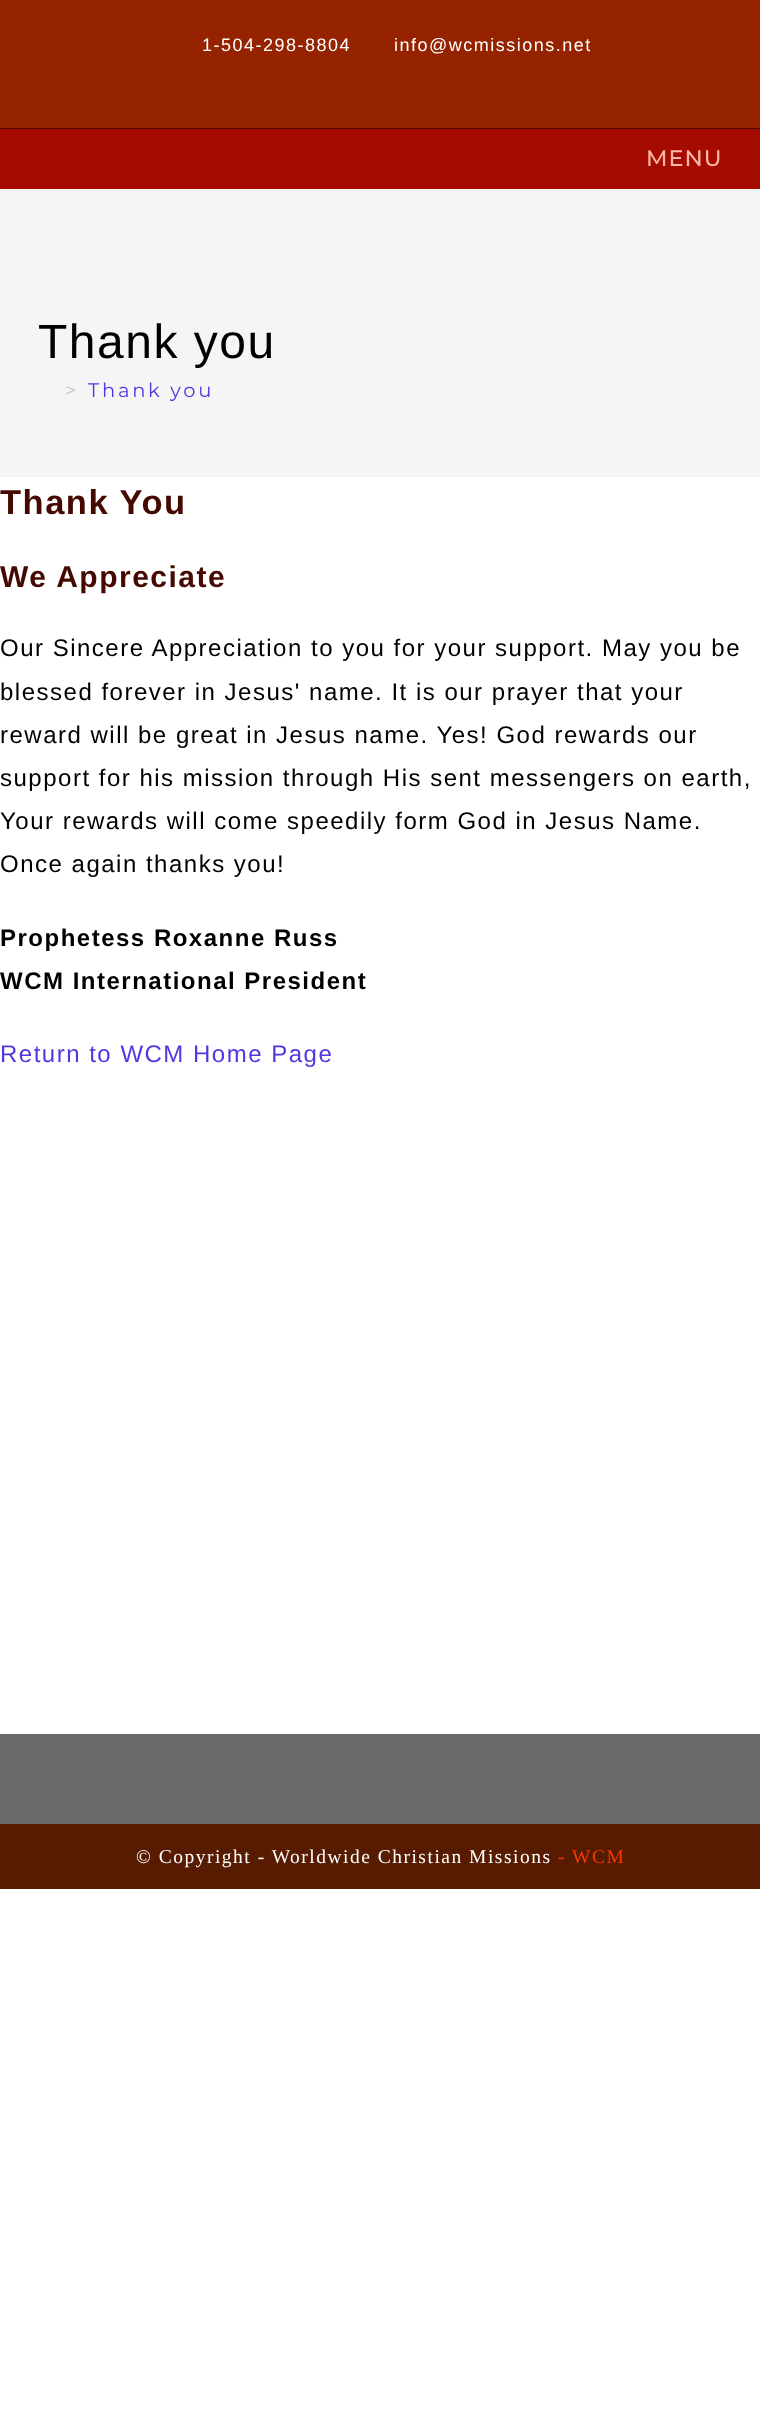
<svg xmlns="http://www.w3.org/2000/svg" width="760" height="2422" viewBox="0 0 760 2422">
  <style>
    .t1 { font: 18px Liberation Sans; letter-spacing: 1.5px; fill: #fff; }
    .t2 { font: 500 22.5px Montserrat; letter-spacing: 1px; fill: #f9b5a7; }
    .t3 { font: 48px Liberation Sans; letter-spacing: 1.5px; fill: #000; }
    .t4 { font: 19.5px Montserrat; letter-spacing: 2.75px; fill: #c6c6c6; }
    .t5 { font: 19.5px Montserrat; letter-spacing: 2.75px; fill: #4f38e2; }
    .t6 { font: bold 34.5px Liberation Sans; letter-spacing: 1.5px; fill: #440900; }
    .t7 { font: bold 30px Liberation Sans; letter-spacing: 1.5px; fill: #440900; }
    .t8 { font: 24px Liberation Sans; letter-spacing: 1.5px; fill: #000; }
    .t9 { font: bold 24px Liberation Sans; letter-spacing: 1.5px; fill: #000; }
    .t10 { font: 24px Liberation Sans; letter-spacing: 1.5px; fill: #4f38e2; }
    .t11 { font: 19.5px Liberation Serif; letter-spacing: 1.5px; fill: #fff; }
    .t12 { font: 19.5px Liberation Serif; letter-spacing: 1.5px; fill: #f73900; }
  </style>
  <rect width="100%" height="100%" fill="#fff"/>
  <rect x="0" y="0" width="760" height="128" fill="#962300"/>
  <rect x="0" y="128" width="760" height="1" fill="#4c0a00"/>
  <text x="202" y="51" class="t1">1-504-298-8804</text>
  <text x="394" y="51" class="t1">info@wcmissions.net</text>
  <rect x="0" y="129" width="760" height="60" fill="#a50b00"/>
  <text x="646" y="166" class="t2">MENU</text>
  <rect x="0" y="189" width="760" height="288" fill="#f5f5f5"/>
  <text x="38" y="358" class="t3">Thank you</text>
  <text x="65" y="397" class="t4">&gt;</text>
  <text x="88" y="397" class="t5">Thank you</text>
  <text x="0" y="514" class="t6">Thank You</text>
  <text x="0" y="587" class="t7">We Appreciate</text>
  <text x="0" y="656" class="t8">Our Sincere Appreciation to you for your support. May you be</text>
  <text x="0" y="700" class="t8">blessed forever in Jesus' name. It is our prayer that your</text>
  <text x="0" y="743" class="t8">reward will be great in Jesus name. Yes! God rewards our</text>
  <text x="0" y="786" class="t8">support for his mission through His sent messengers on earth,</text>
  <text x="0" y="829" class="t8">Your rewards will come speedily form God in Jesus Name.</text>
  <text x="0" y="872" class="t8">Once again thanks you!</text>
  <text x="0" y="946" class="t9">Prophetess Roxanne Russ</text>
  <text x="0" y="989" class="t9">WCM International President</text>
  <text x="0" y="1062" class="t10">Return to WCM Home Page</text>
  <rect x="0" y="1734" width="760" height="90" fill="#6a6969"/>
  <rect x="0" y="1824" width="760" height="65" fill="#561b00"/>
  <text x="136" y="1863" class="t11">© Copyright - Worldwide Christian Missions</text>
  <text x="558" y="1863" class="t12">- WCM</text>
</svg>
